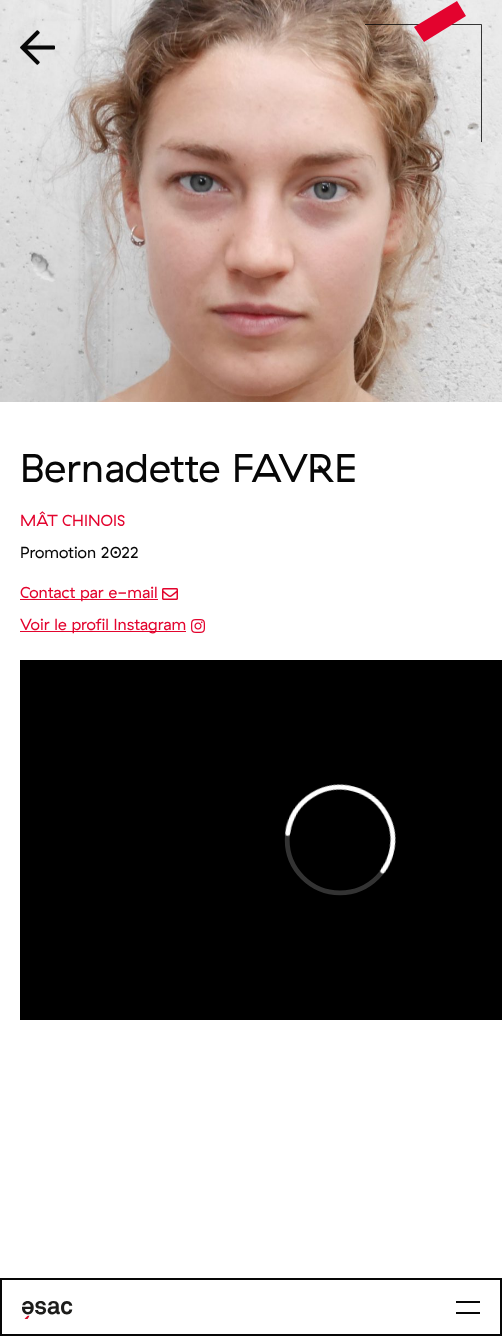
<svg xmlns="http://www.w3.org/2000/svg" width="502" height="1336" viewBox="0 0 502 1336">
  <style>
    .t1 { font: 40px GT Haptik; fill: #070707; }
    .t2 { font: 16px GT Haptik; fill: #e3042e; }
    .t3 { font: 16px GT Haptik; fill: #070707; }
  </style>
  <rect width="100%" height="100%" fill="#fff"/>
  <image x="0" y="0" width="502" height="402" href="images/1.png"/>
  <path d="M365 24.5H481.5V142" fill="none" stroke="#070707" stroke-width="0.8"/>
  <path d="M414 27L457 1L466 16L424 42Z" fill="#e3032e"/>
  <image x="20" y="30" width="35" height="35" href="images/2.png"/>
  <text x="20" y="482" class="t1">Bernadette FAVRE</text>
  <text x="20" y="526" class="t2">MÂT CHINOIS</text>
  <text x="20" y="558" class="t3">Promotion 2022</text>
  <rect x="20" y="599" width="138" height="1" fill="#e3042e"/>
  <text x="20" y="598" class="t2">Contact par e-mail</text>
  <image x="162" y="588" width="16" height="12" href="images/3.png"/>
  <rect x="20" y="631" width="166" height="1" fill="#e3042e"/>
  <text x="20" y="630" class="t2">Voir le profil Instagram</text>
  <image x="191" y="619" width="14" height="14" href="images/4.png"/>
  <image x="20" y="660" width="482" height="360" href="images/5.png"/>
  <rect x="1" y="1279" width="500" height="56" fill="none" stroke="#070707" stroke-width="2"/>
  <image x="22" y="1301" width="51" height="18" href="images/6.png"/>
  <rect x="456" y="1301" width="24" height="2" fill="#070707"/>
  <rect x="456" y="1312" width="24" height="2" fill="#070707"/>
</svg>
